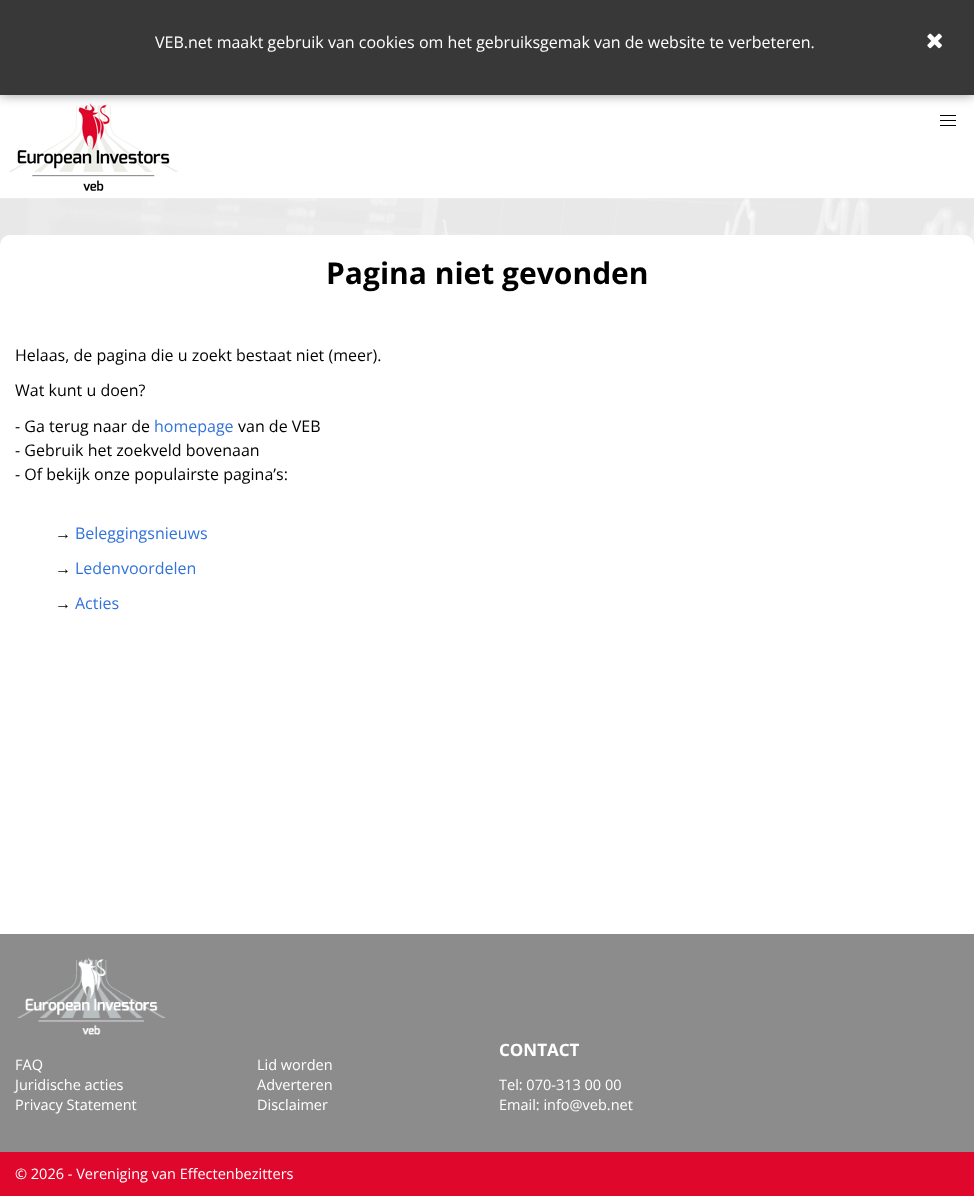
<svg xmlns="http://www.w3.org/2000/svg" width="974" height="1196" viewBox="0 0 974 1196">
  <style>
    .t1 { font: 16px Open Sans; fill: #fff; }
    .t2 { font: bold 30px Open Sans; fill: #000; }
    .t3 { font: 16px Open Sans; fill: #000; }
    .t4 { font: 16px Open Sans; fill: #3273dc; }
    .t5 { font: 16px Liberation Sans; fill: #000; }
    .t6 { font: 14.5px Open Sans; fill: #fff; }
    .t7 { font: bold 17px Open Sans; fill: #fff; }
  </style>
  <rect width="100%" height="100%" fill="#fff"/>
  <image x="9" y="103" width="169" height="88" href="images/2.png"/>
  <rect x="0" y="0" width="974" height="95" fill="#999" filter="blur(6px)"/>
  <rect x="0" y="0" width="974" height="95" fill="#383838"/>
  <text x="155" y="48" class="t1">VEB.net maakt gebruik van cookies om het gebruiksgemak van de website te verbeteren.</text>
  <image x="927" y="33" width="15" height="16" href="images/1.png"/>
  <rect x="940" y="115" width="16" height="1" fill="#000"/>
  <rect x="940" y="120" width="16" height="1" fill="#000"/>
  <rect x="940" y="125" width="16" height="1" fill="#000"/>
  <image x="0" y="198" width="974" height="47" href="images/3.png"/>
  <rect x="0" y="235" width="974" height="406" rx="10" fill="#fff"/>
  <text x="326" y="284" class="t2">Pagina niet gevonden</text>
  <text x="15" y="361" class="t3">Helaas, de pagina die u zoekt bestaat niet (meer).</text>
  <text x="15" y="396" class="t3">Wat kunt u doen?</text>
  <text x="15" y="432" class="t3">- Ga terug naar de</text>
  <text x="154" y="432" class="t4">homepage</text>
  <text x="238" y="432" class="t3">van de VEB</text>
  <text x="15" y="456" class="t3">- Gebruik het zoekveld bovenaan</text>
  <text x="15" y="480" class="t3">- Of bekijk onze populairste pagina’s:</text>
  <text x="55" y="539" class="t5">→</text>
  <text x="75" y="539" class="t4">Beleggingsnieuws</text>
  <text x="55" y="574" class="t5">→</text>
  <text x="75" y="574" class="t4">Ledenvoordelen</text>
  <text x="55" y="609" class="t5">→</text>
  <text x="75" y="609" class="t4">Acties</text>
  <rect x="0" y="934" width="974" height="218" fill="#8c8c8c"/>
  <image x="17" y="957" width="149" height="78" href="images/4.png"/>
  <text x="15" y="1070" class="t6">FAQ</text>
  <text x="15" y="1090" class="t6">Juridische acties</text>
  <text x="15" y="1110" class="t6">Privacy Statement</text>
  <text x="257" y="1070" class="t6">Lid worden</text>
  <text x="257" y="1090" class="t6">Adverteren</text>
  <text x="257" y="1110" class="t6">Disclaimer</text>
  <text x="499" y="1056" class="t7">CONTACT</text>
  <text x="499" y="1090" class="t6">Tel: 070-313 00 00</text>
  <text x="499" y="1110" class="t6">Email: info@veb.net</text>
  <rect x="0" y="1152" width="974" height="44" fill="#df072c"/>
  <text x="15" y="1179" class="t6">© 2026 - Vereniging van Effectenbezitters</text>
</svg>
